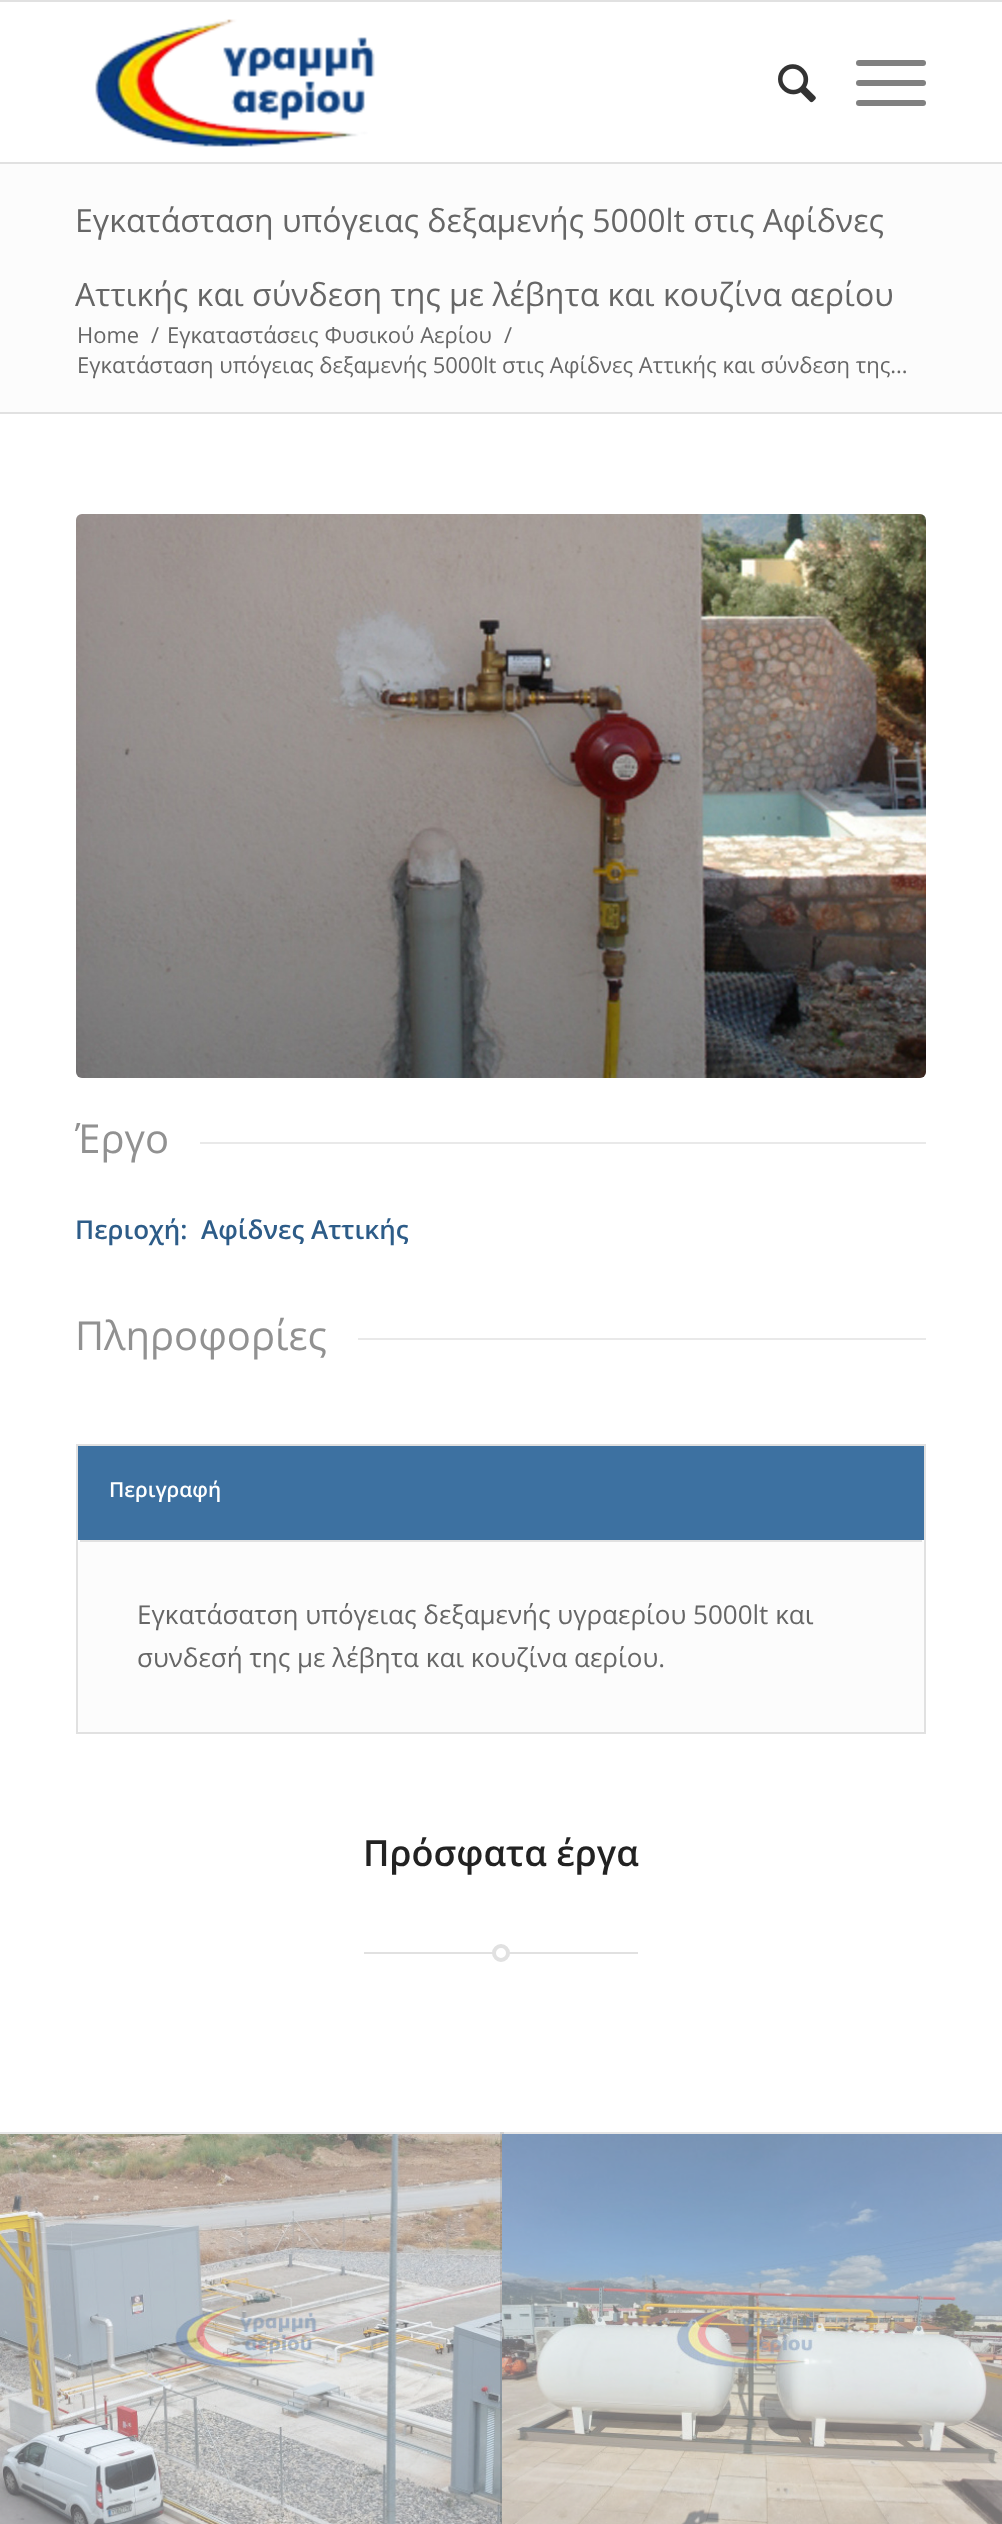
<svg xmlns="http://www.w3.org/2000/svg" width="1002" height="2524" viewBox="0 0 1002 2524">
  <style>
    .t1 { font: 32px Open Sans; fill: #666; }
    .t2 { font: 22px Open Sans; fill: #666; }
    .t3 { font: 40px Open Sans; fill: #919191; }
    .t4 { font: 600 26px Open Sans; fill: #2d5c88; }
    .t5 { font: 600 20.75px Open Sans; fill: #fff; }
    .t6 { font: 26px Open Sans; fill: #666; }
    .t7 { font: 600 36px Open Sans; fill: #222; }
  </style>
  <rect width="100%" height="100%" fill="#fff"/>
  <rect x="0" y="0" width="1002" height="2" fill="#e1e1e1"/>
  <rect x="0" y="162" width="1002" height="2" fill="#e1e1e1"/>
  <image x="95" y="19" width="280" height="128" href="images/1.png"/>
  <image x="778" y="64" width="38" height="39" href="images/2.png"/>
  <rect x="856" y="80" width="70" height="6" rx="3" fill="#808080"/>
  <rect x="856" y="60" width="70" height="6" rx="3" fill="#808080"/>
  <rect x="856" y="100" width="70" height="6" rx="3" fill="#808080"/>
  <rect x="0" y="164" width="1002" height="248" fill="#fcfcfc"/>
  <text x="75" y="232" class="t1">Εγκατάσταση υπόγειας δεξαμενής 5000lt στις Αφίδνες</text>
  <text x="75" y="306" class="t1">Αττικής και σύνδεση της με λέβητα και κουζίνα αερίου</text>
  <text x="77" y="343" class="t2">Home</text>
  <text x="151" y="343" class="t2">/</text>
  <text x="167" y="343" class="t2">Εγκαταστάσεις Φυσικού Αερίου</text>
  <text x="504" y="343" class="t2">/</text>
  <text x="77" y="373" class="t2">Εγκατάσταση υπόγειας δεξαμενής 5000lt στις Αφίδνες Αττικής και σύνδεση της...</text>
  <rect x="0" y="412" width="1002" height="2" fill="#e1e1e1"/>
  <image x="76" y="514" width="850" height="564" href="images/3.png"/>
  <text x="75" y="1153" class="t3">Έργο</text>
  <rect x="200" y="1142" width="726" height="2" fill="#e9e9e9"/>
  <text x="75" y="1239" class="t4" xml:space="preserve">Περιοχή:  Αφίδνες Αττικής</text>
  <text x="75" y="1350" class="t3">Πληροφορίες</text>
  <rect x="358" y="1338" width="568" height="2" fill="#e9e9e9"/>
  <rect x="924" y="1444" width="2" height="290" fill="#e1e1e1"/>
  <rect x="76" y="1732" width="850" height="2" fill="#e1e1e1"/>
  <rect x="76" y="1444" width="2" height="290" fill="#e1e1e1"/>
  <rect x="78" y="1446" width="846" height="94" fill="#3d71a1"/>
  <rect x="78" y="1444" width="846" height="2" fill="#e1e1e1"/>
  <text x="109" y="1497" class="t5">Περιγραφή</text>
  <rect x="78" y="1540" width="846" height="192" rx="4" fill="#fcfcfc"/>
  <rect x="80" y="1540" width="842" height="2" fill="#e1e1e1"/>
  <text x="137" y="1624" class="t6">Εγκατάσατση υπόγειας δεξαμενής υγραερίου 5000lt και</text>
  <text x="137" y="1667" class="t6">συνδεσή της με λέβητα και κουζίνα αερίου.</text>
  <text x="363" y="1866" class="t7">Πρόσφατα έργα</text>
  <rect x="364" y="1952" width="274" height="2" fill="#e1e1e1"/>
  <circle cx="501" cy="1953" r="7" fill="#fff" stroke="#e1e1e1" stroke-width="4"/>
  <rect x="-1" y="2133" width="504" height="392" fill="none" stroke="#e6e6e6" stroke-width="2"/>
  <image x="0" y="2134" width="502" height="390" href="images/4.png"/>
  <rect x="501" y="2133" width="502" height="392" fill="none" stroke="#0000001a" stroke-width="2"/>
  <rect x="502" y="2134" width="2" height="390" fill="#fff"/>
  <image x="502" y="2134" width="500" height="390" href="images/5.png"/>
</svg>
